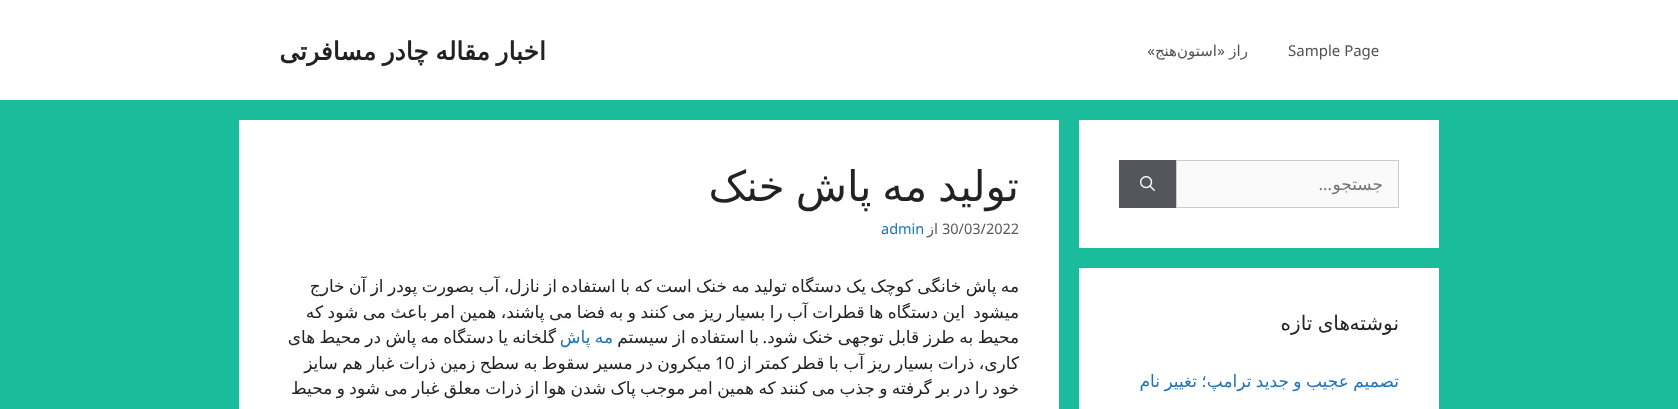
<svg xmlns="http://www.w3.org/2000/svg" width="1678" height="409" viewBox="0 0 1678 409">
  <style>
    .t1 { font: 15px Noto Sans; fill: #515151; }
    .t2 { font: 15px DejaVu Sans; direction: rtl; fill: #515151; }
    .t3 { font: 15px Noto Sans; direction: rtl; fill: #515151; }
    .t4 { font: bold 25px DejaVu Sans; direction: rtl; fill: #222; }
    .t5 { font: 17px Noto Sans; direction: rtl; fill: #757575; }
    .t6 { font: 17px DejaVu Sans; direction: rtl; fill: #757575; }
    .t7 { font: 20px DejaVu Sans; direction: rtl; fill: #222; }
    .t8 { font: 17px DejaVu Sans; direction: rtl; fill: #1e73be; }
    .t9 { font: 42px DejaVu Sans; direction: rtl; fill: #222; }
    .t10 { font: 14.5px Noto Sans; fill: #595959; }
    .t11 { font: 14.5px DejaVu Sans; direction: rtl; fill: #595959; }
    .t12 { font: 14.5px Noto Sans; fill: #1e73be; }
    .t13 { font: 17px DejaVu Sans; direction: rtl; fill: #222; }
    .t14 { font: 17px Noto Sans; direction: rtl; fill: #222; }
    .t15 { font: 17px Noto Sans; fill: #222; }
  </style>
  <rect width="100%" height="100%" fill="#1abc9c"/>
  <rect x="0" y="0" width="1678" height="100" fill="#fff"/>
  <text x="1288" y="56" class="t1">Sample Page</text>
  <text x="1248" y="56" class="t2">راز</text>
  <text x="1225" y="56" class="t3">«</text>
  <text x="1217" y="56" class="t2">استون</text>
  <text x="1177" y="56" class="t2">هنج</text>
  <text x="1155" y="56" class="t3">»</text>
  <text x="546" y="60" word-spacing="-1.5" class="t4">اخبار مقاله چادر مسافرتی</text>
  <rect x="1079" y="120" width="360" height="128" fill="#fff"/>
  <rect x="1176.5" y="160.5" width="222" height="47" fill="#fafafa" stroke="#ccc"/>
  <text x="1332" y="190" class="t5">…</text>
  <text x="1383" y="190" class="t6">جستجو</text>
  <rect x="1119" y="160" width="57" height="48" fill="#55555e"/>
  <image x="1140" y="176" width="15" height="15" href="images/1.png"/>
  <rect x="1079" y="268" width="360" height="141" fill="#fff"/>
  <text x="1399" y="330" class="t7">نوشته</text>
  <text x="1350" y="330" word-spacing="-1" class="t7">های تازه</text>
  <text x="1399" y="387" word-spacing="-1" class="t8">تصمیم عجیب و جدید ترامپ؛ تغییر نام</text>
  <rect x="239" y="120" width="820" height="289" fill="#fff"/>
  <text x="1019" y="201" word-spacing="-2.5" class="t9">تولید مه پاش خنک</text>
  <text x="942" y="234" class="t10">30/03/2022</text>
  <text x="938" y="234" class="t11">از</text>
  <text x="881" y="234" class="t12">admin</text>
  <text x="1019" y="292" word-spacing="-1" class="t13">مه پاش خانگی کوچک یک دستگاه تولید مه خنک است که با استفاده از نازل، آب بصورت پودر از آن خارج</text>
  <text x="1019" y="318" class="t13">میشود</text>
  <text x="965" y="318" word-spacing="-0.9" class="t13">این دستگاه ها قطرات آب را بسیار ریز می کنند و به فضا می پاشند، همین امر باعث می شود که</text>
  <text x="1019" y="343" word-spacing="-0.9" class="t13">محیط به طرز قابل توجهی خنک شود</text>
  <text x="767" y="343" class="t14">.</text>
  <text x="759" y="343" word-spacing="-0.9" class="t13">با استفاده از سیستم</text>
  <text x="613" y="343" word-spacing="-1" class="t8">مه پاش</text>
  <text x="556" y="343" word-spacing="-1" class="t13">گلخانه یا دستگاه مه پاش در محیط های</text>
  <text x="1019" y="369" word-spacing="-1" class="t13">کاری، ذرات بسیار ریز آب با قطر کمتر از</text>
  <text x="711" y="369" word-spacing="-0.9" class="t13">میکرون در مسیر سقوط به سطح زمین ذرات غبار هم سایز</text>
  <text x="715" y="369" class="t15">10</text>
  <text x="1019" y="394" word-spacing="-1" class="t13">خود را در بر گرفته و جذب می کنند که همین امر موجب پاک شدن هوا از ذرات معلق غبار می شود و محیط</text>
</svg>
